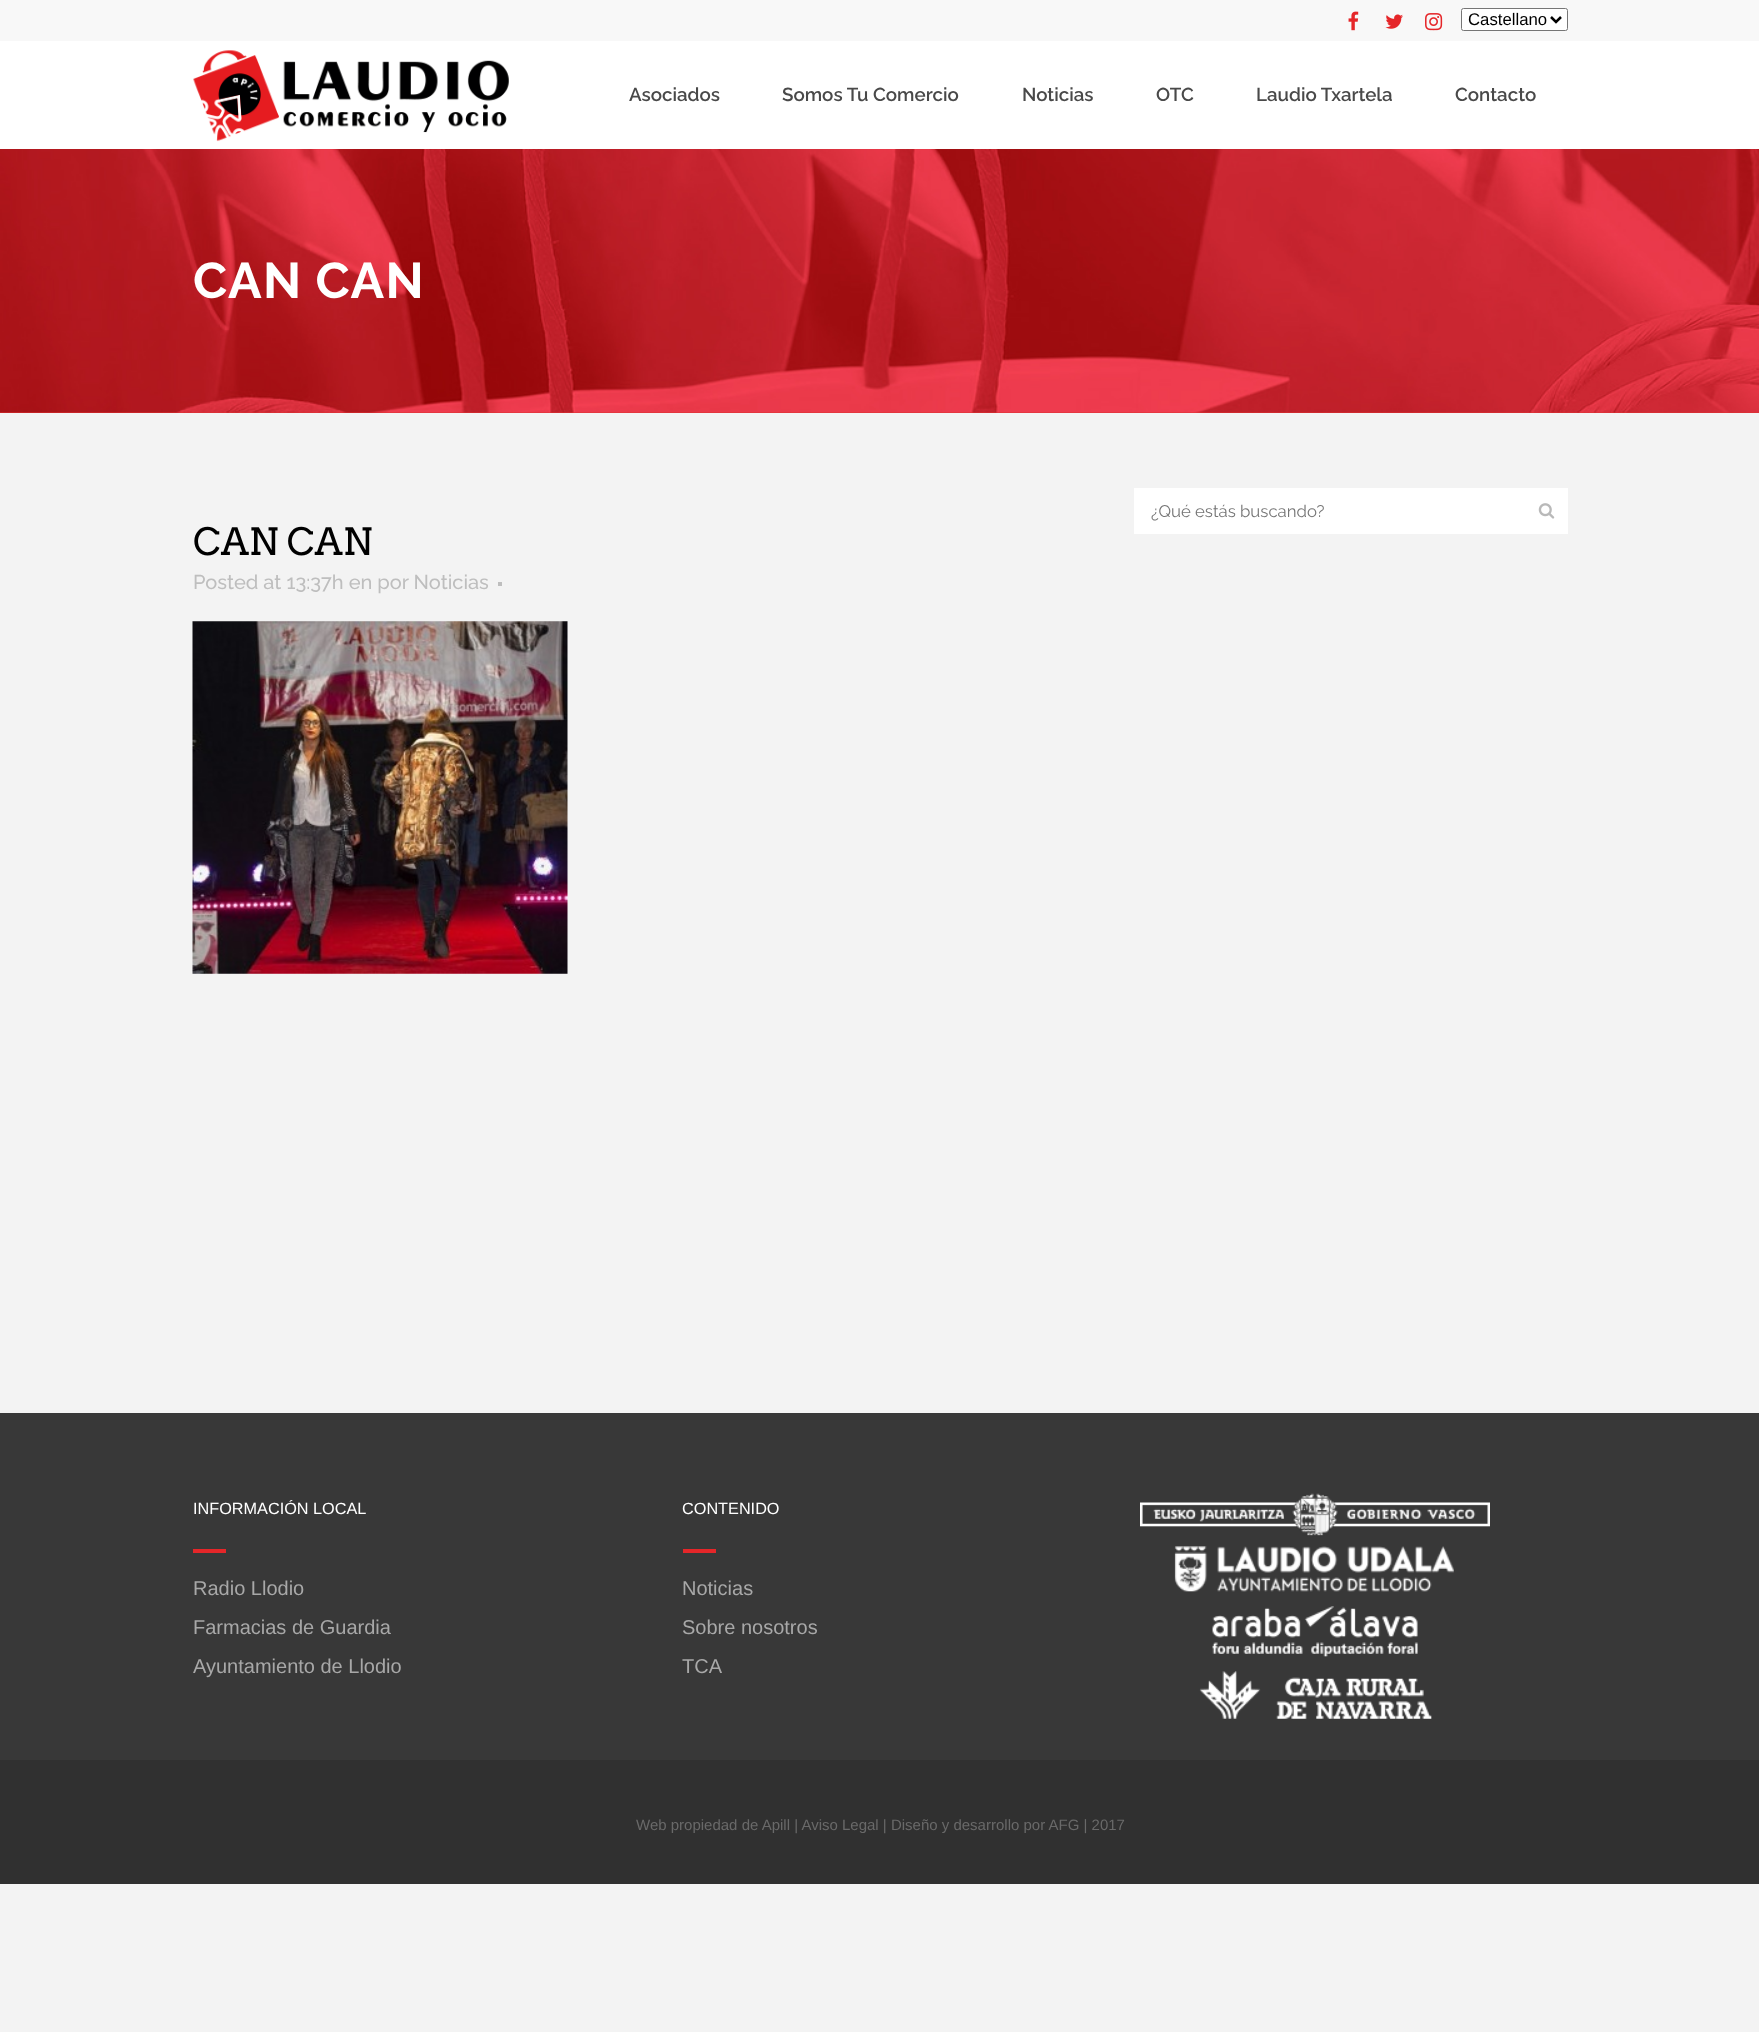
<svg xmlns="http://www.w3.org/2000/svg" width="1759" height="2032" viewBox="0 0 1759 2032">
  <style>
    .t1 { font: 16.75px Liberation Sans; fill: #000; }
    .t2 { font: 600 18.75px Raleway; fill: #494949; }
    .t3 { font: bold 50px Raleway; letter-spacing: 1.25px; fill: #fff; }
    .t4 { font: 16.75px Raleway; fill: #757575; }
    .t5 { font: 37.5px Arvo; fill: #000; }
    .t6 { font: 500 20px Raleway; fill: #bebebe; }
    .t7 { font: 16.25px Liberation Sans; fill: #fff; }
    .t8 { font: 20px Liberation Sans; fill: #a8a8a8; }
    .t9 { font: 15px Liberation Sans; fill: #696969; }
  </style>
  <rect width="100%" height="100%" fill="#f3f3f3"/>
  <rect x="0" y="0" width="1759" height="41" fill="#f8f8f8"/>
  <image x="1348" y="11" width="11" height="20" href="images/1.png"/>
  <image x="1385" y="14" width="18" height="15" href="images/2.png"/>
  <image x="1425" y="13" width="18" height="18" href="images/3.png"/>
  <rect x="1461.5" y="8.5" width="106" height="22" rx="2" fill="#fff" stroke="#767676"/>
  <path d="M1551 17L1556 22L1561 17" fill="none" stroke="#000" stroke-width="2.5"/>
  <text x="1468" y="25" class="t1">Castellano</text>
  <rect x="0" y="41" width="1759" height="108" fill="#fff"/>
  <image x="193" y="50" width="316" height="92" href="images/4.png"/>
  <text x="629" y="101" class="t2">Asociados</text>
  <text x="782" y="101" class="t2">Somos Tu Comercio</text>
  <text x="1022" y="101" class="t2">Noticias</text>
  <text x="1156" y="101" class="t2">OTC</text>
  <text x="1256" y="101" class="t2">Laudio Txartela</text>
  <text x="1455" y="101" class="t2">Contacto</text>
  <rect x="0" y="412" width="1759" height="1" fill="#d33"/>
  <image x="0" y="149" width="1759" height="264" href="images/5.png"/>
  <text x="193" y="298" class="t3">CAN CAN</text>
  <rect x="1134" y="488" width="434" height="46" fill="#fff"/>
  <text x="1151" y="517" class="t4">¿Qué estás buscando?</text>
  <image x="1538" y="503" width="17" height="16" href="images/6.png"/>
  <text x="193" y="555" class="t5">CAN CAN</text>
  <text x="193" y="589" class="t6">Posted at 13:37h en por Noticias</text>
  <rect x="498" y="582" width="4" height="4" fill="#bebebe"/>
  <image x="192" y="621" width="376" height="353" href="images/7.png"/>
  <rect x="0" y="1413" width="1759" height="347" fill="#383838"/>
  <text x="193" y="1514" class="t7">INFORMACIÓN LOCAL</text>
  <rect x="193" y="1549" width="33" height="4" fill="#e52629"/>
  <text x="193" y="1595" class="t8">Radio Llodio</text>
  <text x="193" y="1634" class="t8">Farmacias de Guardia</text>
  <text x="193" y="1673" class="t8">Ayuntamiento de Llodio</text>
  <text x="682" y="1514" class="t7">CONTENIDO</text>
  <rect x="683" y="1549" width="33" height="4" fill="#e52629"/>
  <text x="682" y="1595" class="t8">Noticias</text>
  <text x="682" y="1634" class="t8">Sobre nosotros</text>
  <text x="682" y="1673" class="t8">TCA</text>
  <image x="1140" y="1493" width="350" height="226" href="images/8.png"/>
  <rect x="0" y="1760" width="1759" height="124" fill="#303030"/>
  <text x="636" y="1830" class="t9">Web propiedad de Apill | Aviso Legal | Diseño y desarrollo por AFG | 2017</text>
</svg>
